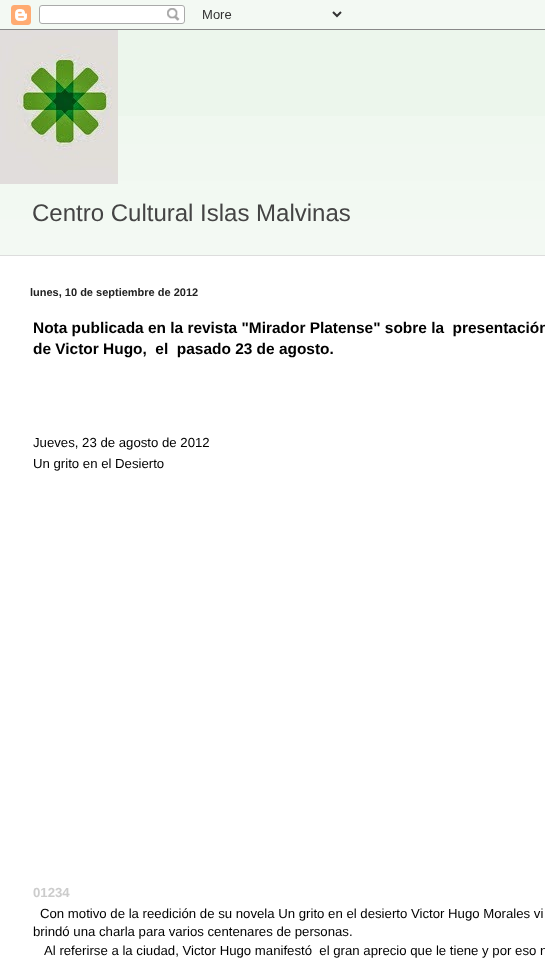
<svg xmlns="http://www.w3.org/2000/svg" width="545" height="960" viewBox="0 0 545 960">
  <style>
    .t1 { font: 24px Liberation Sans; fill: #444; }
    .t2 { font: bold 11px Liberation Sans; fill: #222; }
    .t3 { font: bold 15.45px Liberation Sans; fill: #000; }
    .t4 { font: 13.2px Liberation Sans; fill: #000; }
    .t5 { font: bold 13.2px Liberation Sans; fill: #ccc; }
  </style>
  <rect width="100%" height="100%" fill="#ecf6ec"/>
  <image x="0" y="0" width="545" height="30" href="images/1.png"/>
  <image x="0" y="116" width="545" height="139" href="images/2.png"/>
  <image x="0" y="30" width="118" height="154" href="images/3.png"/>
  <text x="32" y="221" class="t1">Centro Cultural Islas Malvinas</text>
  <rect x="0" y="256" width="545" height="704" fill="#fff"/>
  <rect x="0" y="255" width="545" height="1" fill="#ddd"/>
  <text x="30" y="296" class="t2">lunes, 10 de septiembre de 2012</text>
  <text x="33" y="333" class="t3" xml:space="preserve">Nota publicada en la revista "Mirador Platense" sobre la  presentación</text>
  <text x="33" y="354" class="t3" xml:space="preserve">de Victor Hugo,  el  pasado 23 de agosto.</text>
  <text x="33" y="447" class="t4">Jueves, 23 de agosto de 2012</text>
  <text x="33" y="468" class="t4">Un grito en el Desierto</text>
  <text x="33" y="897" class="t5">01234</text>
  <text x="40" y="918" class="t4">Con motivo de la reedición de su novela Un grito en el desierto Victor Hugo Morales vi</text>
  <text x="33" y="936" class="t4">brindó una charla para varios centenares de personas.</text>
  <text x="44" y="955" class="t4" xml:space="preserve">Al referirse a la ciudad, Victor Hugo manifestó  el gran aprecio que le tiene y por eso n</text>
</svg>
